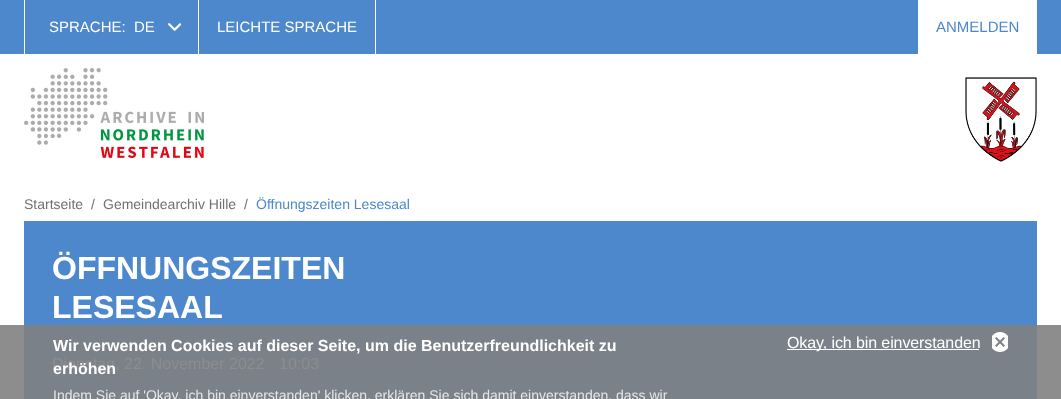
<svg xmlns="http://www.w3.org/2000/svg" width="1061" height="399" viewBox="0 0 1061 399">
  <style>
    .t1 { font: 15px Liberation Sans; fill: #fff; }
    .t2 { font: 15px Liberation Sans; fill: #4d87cc; }
    .t3 { font: 14px Liberation Sans; fill: #707070; }
    .t4 { font: 14px Liberation Sans; fill: #4d87cc; }
    .t5 { font: bold 32px Liberation Sans; fill: #fff; }
    .t6 { font: 16px Liberation Sans; fill: #8d8d8d; }
    .t7 { font: bold 16px Liberation Sans; fill: #fff; }
    .t8 { font: 14px Liberation Sans; fill: #e5e6e7; }
    .t9 { font: 16px Liberation Sans; letter-spacing: -0.1px; fill: #fff; }
  </style>
  <rect width="100%" height="100%" fill="#fff"/>
  <rect x="0" y="325" width="1061" height="74" fill="#8d8d8d"/>
  <rect x="0" y="0" width="1061" height="54" fill="#4d87cc"/>
  <rect x="198" y="0" width="1" height="54" fill="#fff"/>
  <rect x="24" y="0" width="1" height="54" fill="#fff"/>
  <text x="49" y="32" class="t1">SPRACHE:</text>
  <text x="134" y="32" class="t1">DE</text>
  <image x="168" y="23" width="14" height="8" href="images/1.png"/>
  <rect x="375" y="0" width="1" height="54" fill="#fff"/>
  <text x="217" y="32" class="t1">LEICHTE SPRACHE</text>
  <rect x="918" y="0" width="119" height="54" fill="#fff"/>
  <text x="936" y="32" class="t2">ANMELDEN</text>
  <image x="24" y="68" width="180" height="90" href="images/2.png"/>
  <image x="965" y="77" width="72" height="85" href="images/3.png"/>
  <text x="24" y="209" class="t3">Startseite</text>
  <text x="91" y="209" class="t3">/</text>
  <text x="103" y="209" class="t3">Gemeindearchiv Hille</text>
  <text x="244" y="209" class="t3">/</text>
  <text x="256" y="209" class="t4">Öffnungszeiten Lesesaal</text>
  <rect x="24" y="221" width="1013" height="104" fill="#4d87cc"/>
  <rect x="24" y="325" width="1013" height="74" fill="#7b8188"/>
  <text x="52" y="279" class="t5">ÖFFNUNGSZEITEN</text>
  <text x="52" y="318" class="t5">LESESAAL</text>
  <text x="52" y="369" class="t6">Dienstag, 22. November 2022</text>
  <text x="279" y="369" class="t6">10:03</text>
  <text x="53" y="351" class="t7">Wir verwenden Cookies auf dieser Seite, um die Benutzerfreundlichkeit zu</text>
  <text x="53" y="374" class="t7">erhöhen</text>
  <text x="53" y="400" class="t8">Indem Sie auf 'Okay, ich bin einverstanden' klicken, erklären Sie sich damit einverstanden, dass wir</text>
  <rect x="787" y="349" width="192" height="1" fill="#fff"/>
  <text x="787" y="348" class="t9">Okay, ich bin einverstanden</text>
  <image x="992" y="332" width="16" height="20" href="images/4.png"/>
</svg>
